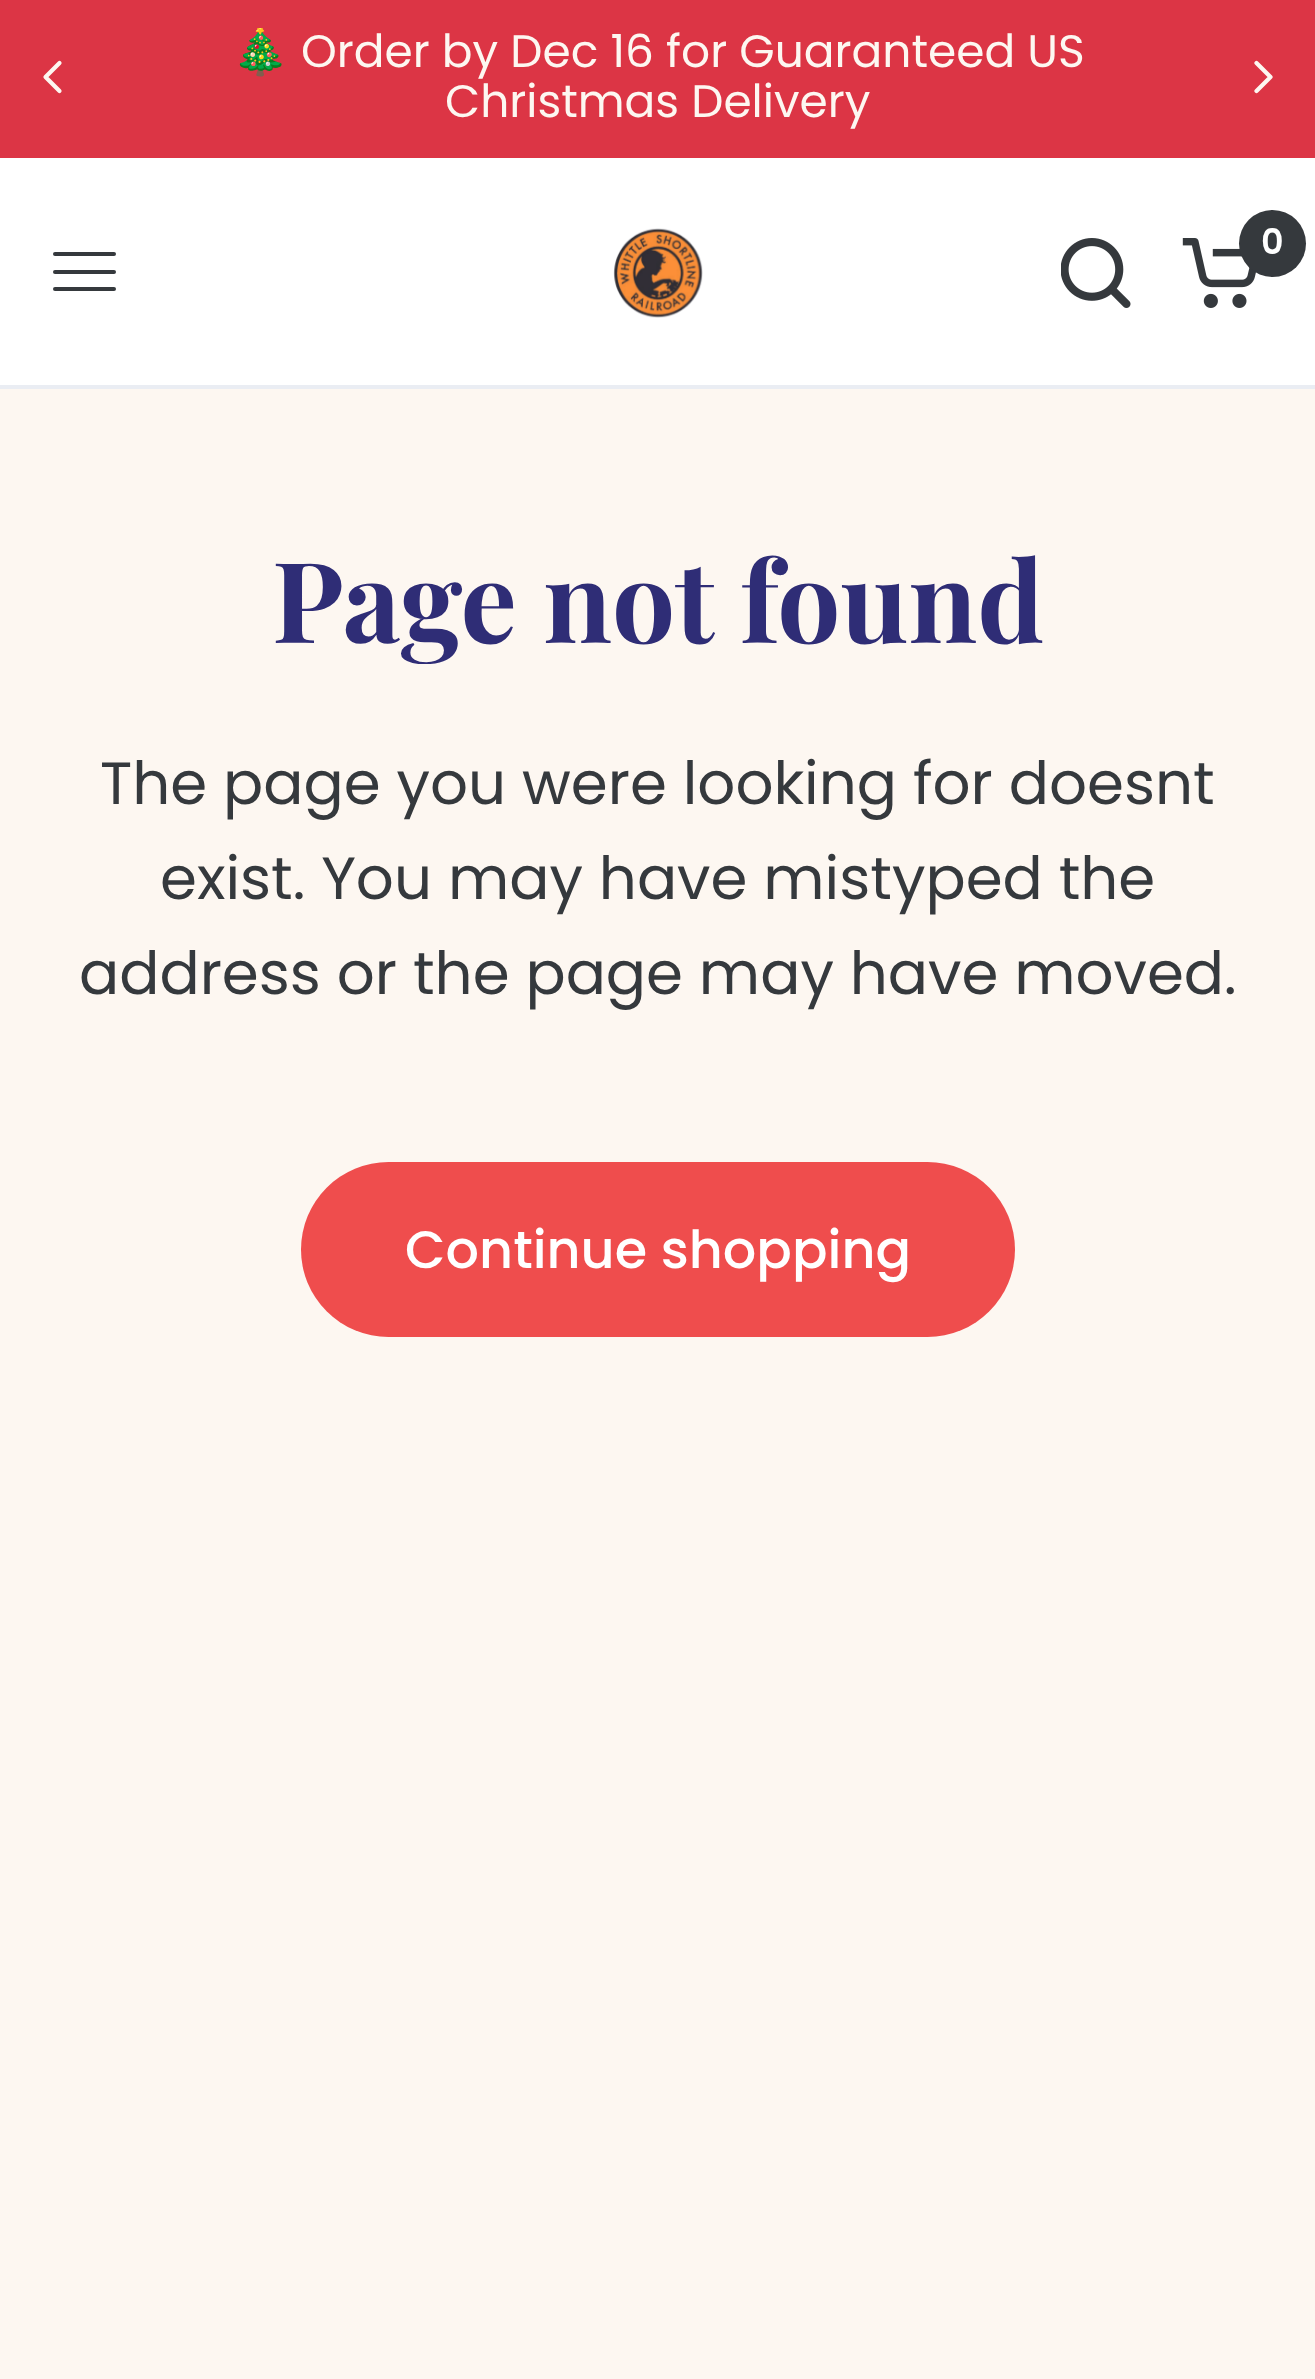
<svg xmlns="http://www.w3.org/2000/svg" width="1315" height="2379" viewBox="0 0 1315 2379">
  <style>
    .t1 { font: 45.5px Noto Color Emoji; fill: #fdf7f1; }
    .t2 { font: 45.5px Poppins; fill: #fdf7f1; }
    .t3 { font: 600 35px Poppins; fill: #fff; }
    .t4 { font: bold 112px Playfair Display; fill: #2f2d76; }
    .t5 { font: 59.5px Poppins; fill: #35393d; }
    .t6 { font: 500 52.5px Poppins; fill: #fff; }
  </style>
  <defs>
    <clipPath id="clip1"><rect x="53" y="28" width="1211" height="102"/></clipPath>
  </defs>
  <rect width="100%" height="100%" fill="#fdf7f1"/>
  <rect x="0" y="0" width="1315" height="158" fill="#dc3545"/>
  <path d="M59.5 63L45.5 77L59.5 91" fill="none" stroke="#fdf7f1" stroke-width="4.2" stroke-linecap="round" stroke-linejoin="round"/>
  <g clip-path="url(#clip1)">
    <text x="232" y="67" class="t1">🎄</text>
  </g>
  <text x="301" y="67" class="t2">Order by Dec 16 for Guaranteed US</text>
  <text x="445" y="117" class="t2">Christmas Delivery</text>
  <path d="M1256.5 63L1270.5 77L1256.5 91" fill="none" stroke="#fdf7f1" stroke-width="4.2" stroke-linecap="round" stroke-linejoin="round"/>
  <rect x="0" y="158" width="1315" height="227" fill="#fff"/>
  <image x="613" y="228" width="90" height="90" href="images/1.png"/>
  <image x="1061" y="238" width="70" height="70" href="images/2.png"/>
  <image x="1182" y="238" width="74" height="70" href="images/3.png"/>
  <circle cx="1272.5" cy="243.5" r="33.5" fill="#35393d"/>
  <text x="1261" y="254" class="t3">0</text>
  <rect x="53" y="252" width="63" height="4" rx="2" fill="#35393d"/>
  <rect x="53" y="270" width="63" height="4" rx="2" fill="#35393d"/>
  <rect x="53" y="287" width="63" height="4" rx="2" fill="#35393d"/>
  <rect x="0" y="385" width="1315" height="4" fill="#eaedf3"/>
  <text x="272" y="643" class="t4">Page not found</text>
  <text x="100" y="804" class="t5">The page you were looking for doesnt</text>
  <text x="160" y="899" class="t5">exist. You may have mistyped the</text>
  <text x="79" y="994" class="t5">address or the page may have moved.</text>
  <rect x="301" y="1162" width="714" height="175" rx="87.5" fill="#ef4d4d"/>
  <text x="405" y="1268" class="t6">Continue shopping</text>
</svg>
